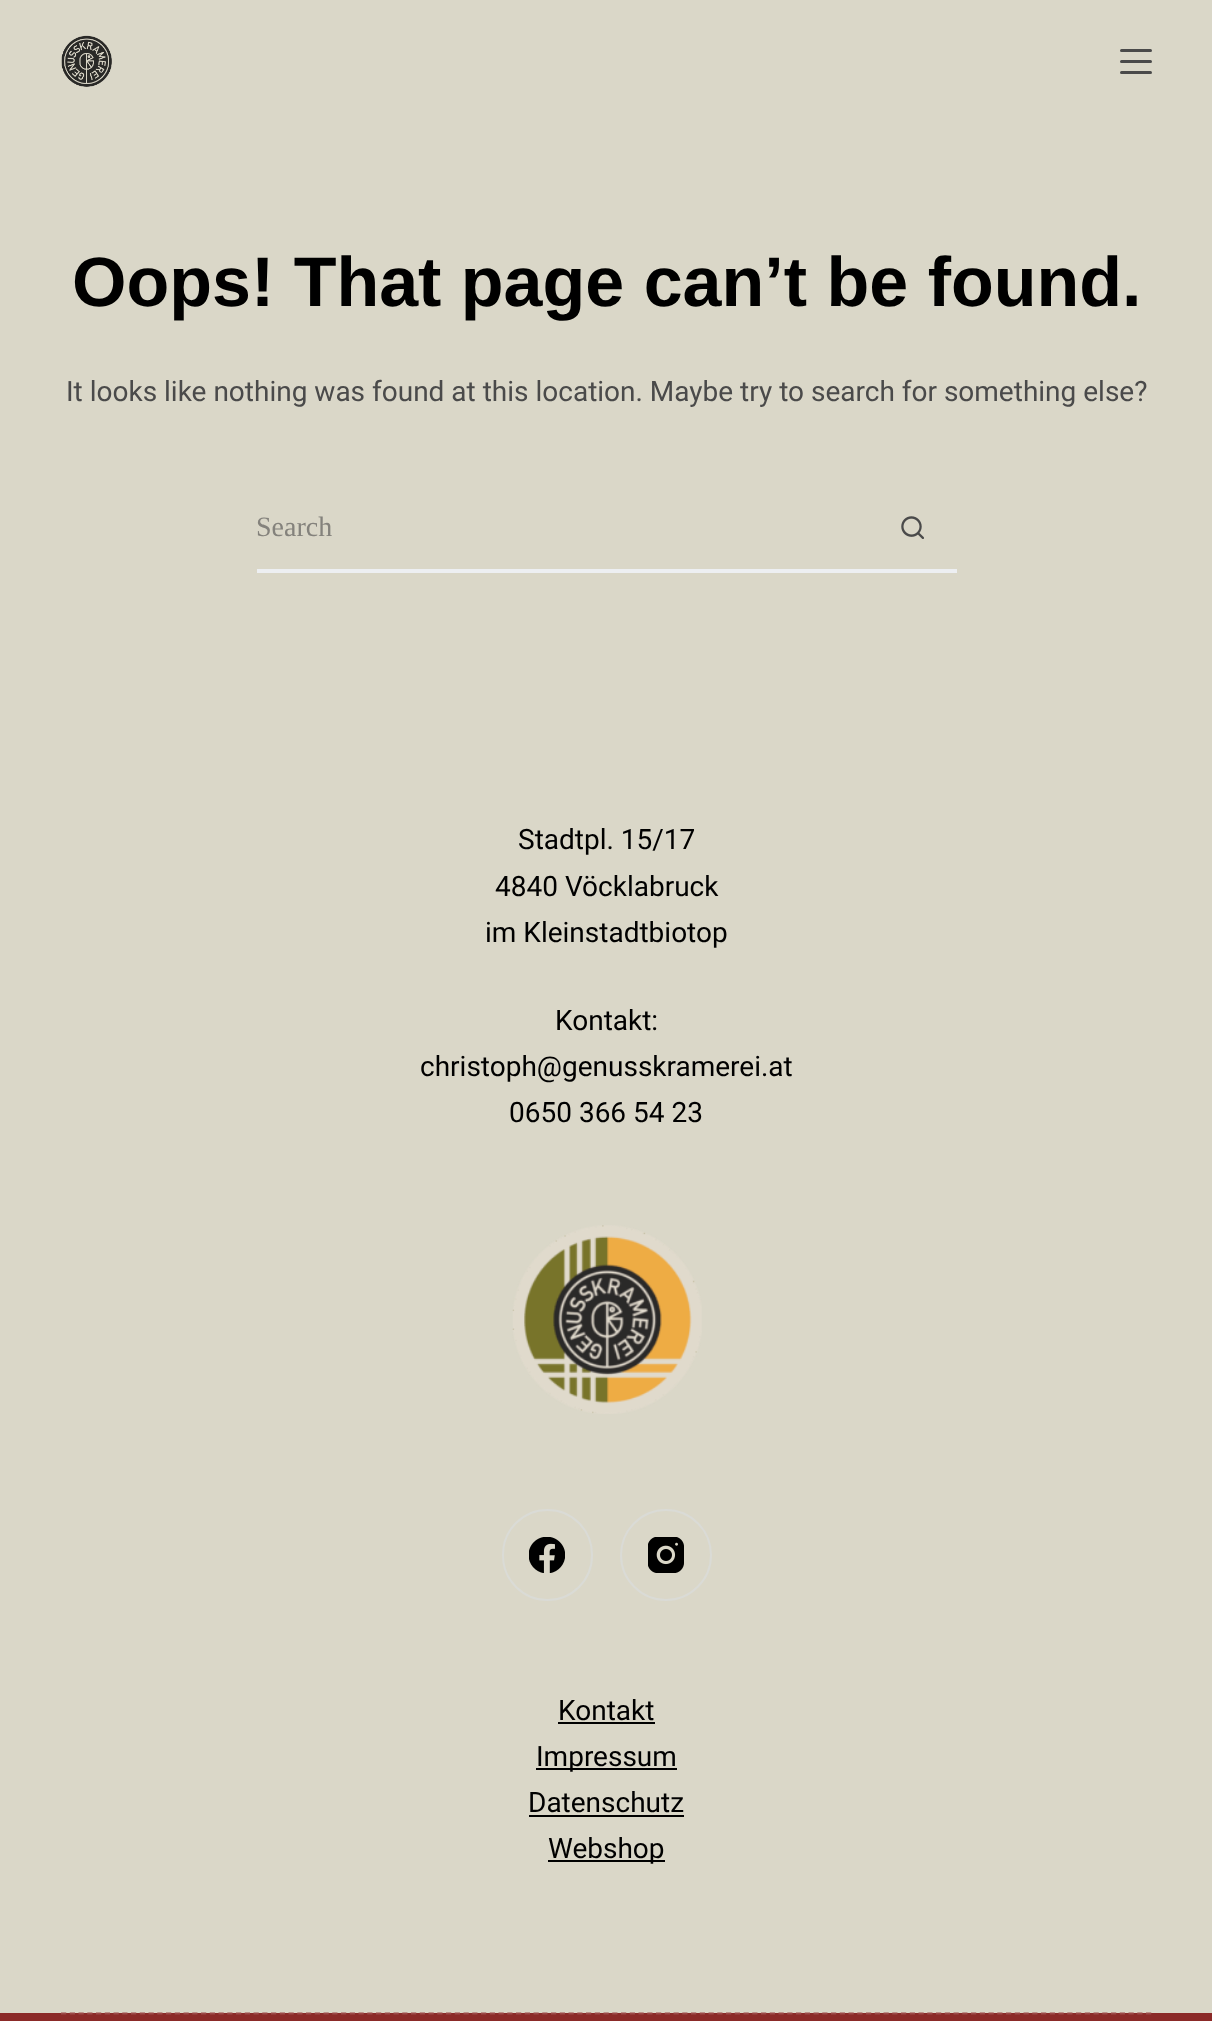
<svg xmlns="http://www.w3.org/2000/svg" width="1212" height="2021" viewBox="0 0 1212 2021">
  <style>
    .t1 { font: bold 70px Liberation Sans; fill: #000; }
    .t2 { font: 28px Roboto; fill: #4a4a4a; }
    .t3 { font: 28px Liberation Serif; fill: #84827c; }
    .t4 { font: 28px Roboto; fill: #000; }
  </style>
  <rect width="100%" height="100%" fill="#dad7c8"/>
  <image x="61" y="35" width="51" height="52" href="images/1.png"/>
  <rect x="1120" y="49" width="32" height="3" rx="1.5" fill="#4a4a4a"/>
  <rect x="1120" y="60" width="32" height="3" rx="1.5" fill="#4a4a4a"/>
  <rect x="1120" y="71" width="32" height="3" rx="1.5" fill="#4a4a4a"/>
  <text x="72" y="306" class="t1">Oops! That page can’t be found.</text>
  <text x="66" y="401" class="t2">It looks like nothing was found at this location. Maybe try to search for something else?</text>
  <rect x="257" y="569" width="700" height="4" fill="#edeff2"/>
  <text x="256" y="536" class="t3">Search</text>
  <image x="901" y="516" width="23" height="23" href="images/2.png"/>
  <text x="518" y="849" class="t4">Stadtpl. 15/17</text>
  <text x="495" y="896" class="t4">4840 Vöcklabruck</text>
  <text x="485" y="942" class="t4">im Kleinstadtbiotop</text>
  <text x="555" y="1030" class="t4">Kontakt:</text>
  <text x="420" y="1076" class="t4">christoph@genusskramerei.at</text>
  <text x="509" y="1122" class="t4">0650 366 54 23</text>
  <image x="512" y="1225" width="190" height="189" href="images/3.png"/>
  <rect x="503" y="1510" width="89" height="90" rx="44.5" fill="none" stroke="#dadbd6" stroke-width="2"/>
  <image x="529" y="1537" width="36" height="36" href="images/4.png"/>
  <circle cx="666" cy="1555" r="45" fill="none" stroke="#dadbd6" stroke-width="2"/>
  <image x="648" y="1537" width="36" height="36" href="images/5.png"/>
  <text x="558" y="1720" class="t4">Kontakt</text>
  <rect x="558" y="1722" width="97" height="2" fill="#000"/>
  <rect x="536" y="1768" width="141" height="2" fill="#000"/>
  <text x="536" y="1766" class="t4">Impressum</text>
  <text x="528" y="1812" class="t4">Datenschutz</text>
  <rect x="529" y="1815" width="155" height="2" fill="#000"/>
  <rect x="548" y="1860" width="117" height="2" fill="#000"/>
  <text x="548" y="1858" class="t4">Webshop</text>
  <rect x="0" y="2013" width="1212" height="8" fill="#8b2a28"/>
  <path d="M61 2013.5H1151.5" fill="none" stroke="#9c4a48" stroke-width="1.8" stroke-dasharray="5.25 3.5"/>
</svg>
